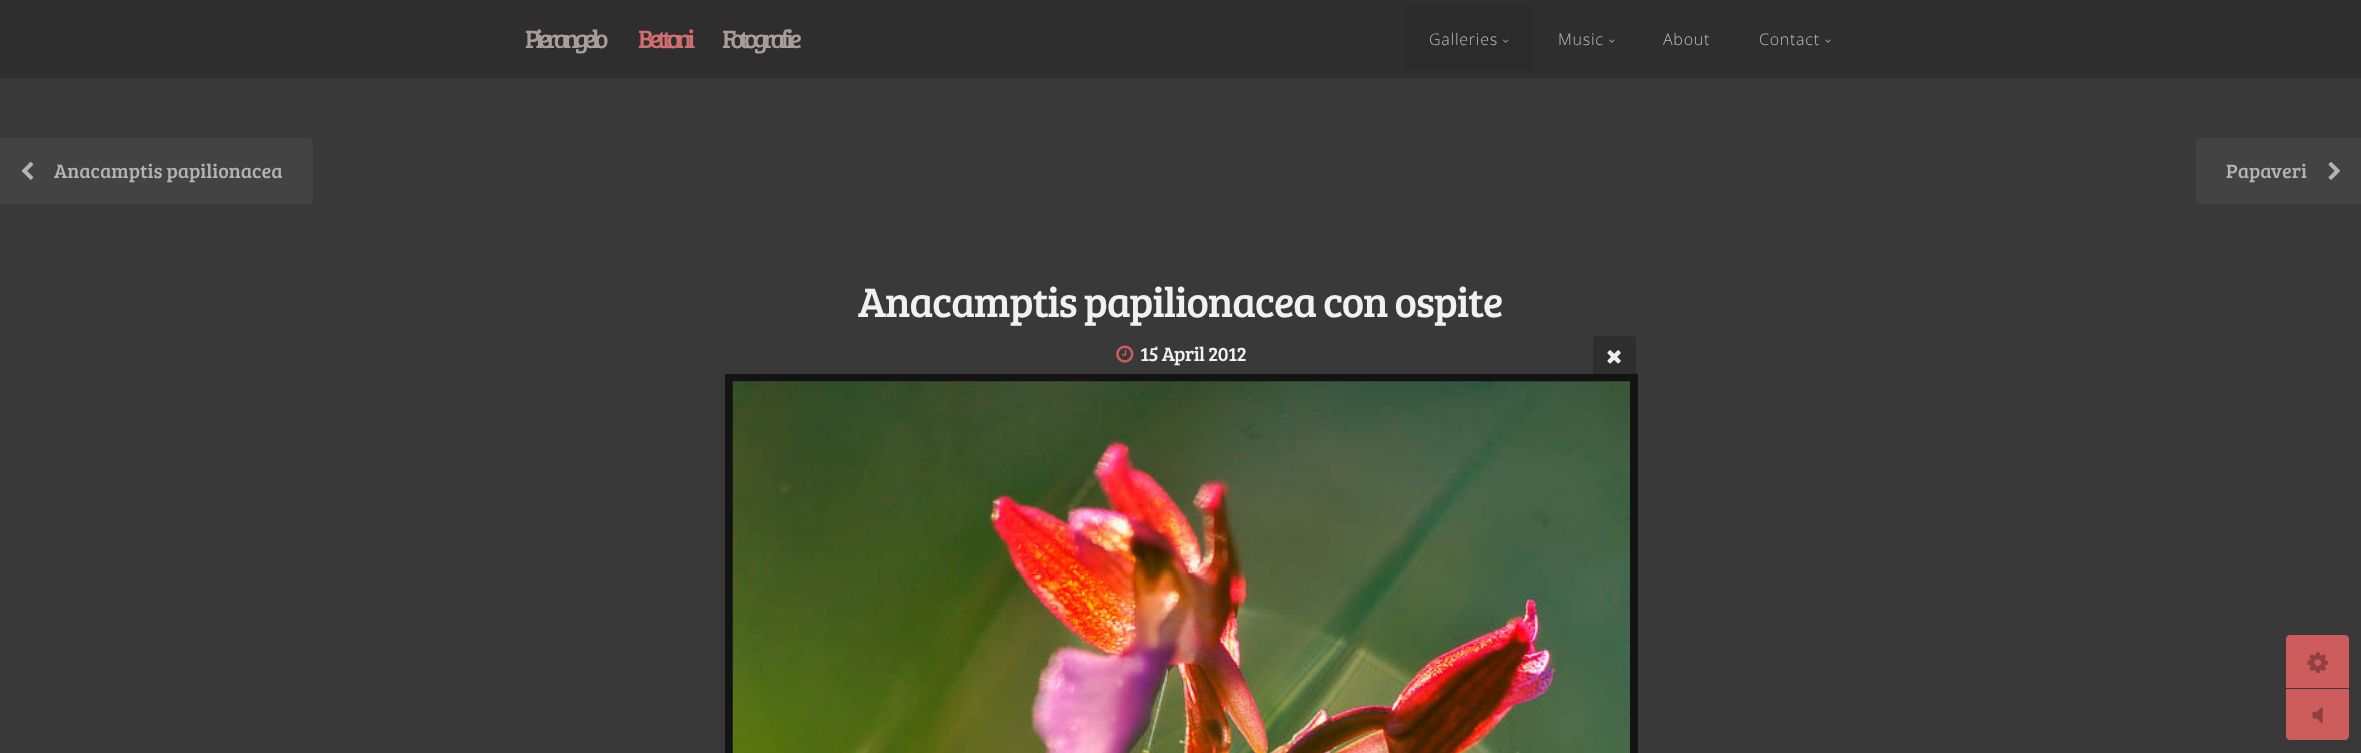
<svg xmlns="http://www.w3.org/2000/svg" width="2361" height="753" viewBox="0 0 2361 753">
  <style>
    .t1 { font: 26px Bree Serif; letter-spacing: -4.75px; fill: #ab9c9c; }
    .t2 { font: 26px Bree Serif; letter-spacing: -4.5px; fill: #d16f6f; }
    .t3 { font: 26px Bree Serif; letter-spacing: -4.5px; fill: #ab9c9c; }
    .t4 { font: 300 16px Open Sans; letter-spacing: 0.75px; fill: #bebebe; }
    .t5 { font: 20px Bree Serif; fill: #b3b3b3; }
    .t6 { font: 42.5px Bree Serif; letter-spacing: -1.2px; fill: #f1f1f1; }
    .t7 { font: 20px Bree Serif; letter-spacing: -0.5px; fill: #f1f1f1; }
  </style>
  <rect width="100%" height="100%" fill="#393939"/>
  <rect x="0" y="0" width="2361" height="78" fill="#2e2e2e"/>
  <text x="525" y="48" class="t1">Pierangelo</text>
  <text x="638" y="48" class="t2">Bettoni</text>
  <text x="722" y="48" class="t3">Fotografie</text>
  <rect x="1405" y="6" width="129" height="64" rx="4" fill="#2b2b2b"/>
  <text x="1429" y="45" class="t4">Galleries</text>
  <image x="1503" y="39" width="6" height="4" href="images/1.png"/>
  <text x="1558" y="45" class="t4">Music</text>
  <image x="1609" y="39" width="6" height="4" href="images/2.png"/>
  <text x="1663" y="45" class="t4">About</text>
  <text x="1759" y="45" class="t4">Contact</text>
  <image x="1825" y="39" width="6" height="4" href="images/3.png"/>
  <path d="M0 138H309C311 138 313 140 313 142V200C313 202 311 204 309 204H0Z" fill="#434343"/>
  <image x="21" y="162" width="13" height="18" href="images/4.png"/>
  <text x="54" y="178" class="t5">Anacamptis papilionacea</text>
  <path d="M2200 138H2361V204H2200C2198 204 2196 202 2196 200V142C2196 140 2198 138 2200 138Z" fill="#434343"/>
  <text x="2226" y="178" class="t5">Papaveri</text>
  <image x="2328" y="162" width="12" height="18" href="images/5.png"/>
  <text x="858" y="317" class="t6">Anacamptis papilionacea con ospite</text>
  <image x="1116" y="345" width="18" height="18" href="images/6.png"/>
  <text x="1140" y="361" class="t7">15 April 2012</text>
  <path d="M1597 336H1632C1634 336 1636 338 1636 340V374H1593V340C1593 338 1595 336 1597 336Z" fill="#2e2e2e"/>
  <image x="1607" y="350" width="14" height="14" href="images/7.png"/>
  <rect x="725" y="374" width="913" height="379" fill="#131313"/>
  <rect x="733" y="381" width="897" height="1" fill="#2c2c2c"/>
  <image x="732" y="381" width="898" height="372" href="images/8.png"/>
  <path d="M2290 635H2345C2347 635 2349 637 2349 639V688H2286V639C2286 637 2288 635 2290 635Z" fill="#cd5c5c"/>
  <image x="2307" y="652" width="21" height="21" href="images/9.png"/>
  <path d="M2286 689H2349V736C2349 738 2347 740 2345 740H2290C2288 740 2286 738 2286 736Z" fill="#cd5c5c"/>
  <image x="2312" y="707" width="11" height="17" href="images/10.png"/>
</svg>
